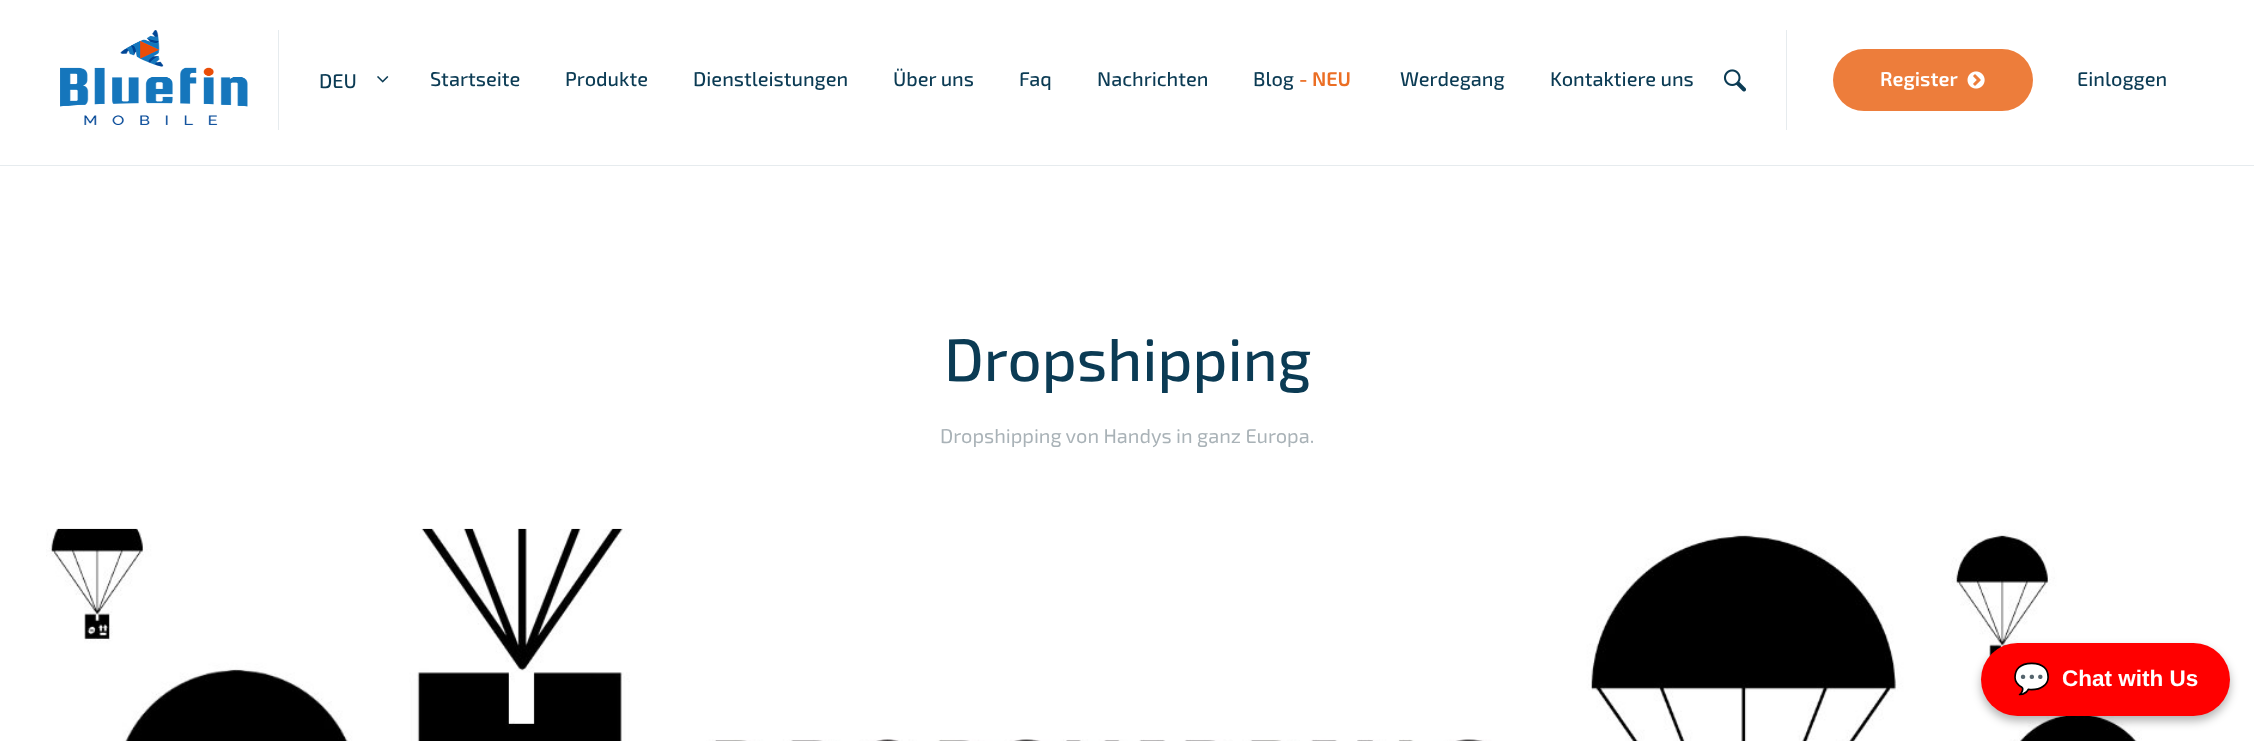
<svg xmlns="http://www.w3.org/2000/svg" width="2254" height="741" viewBox="0 0 2254 741">
  <style>
    .t1 { font: 500 20px 'Exo 2'; fill: #0b3b54; }
    .t2 { font: 600 20px 'Exo 2'; fill: #eb6e24; }
    .t3 { font: 600 20px 'Exo 2'; fill: #fff; }
    .t4 { font: 500 60px 'Exo 2'; fill: #0b3b54; }
    .t5 { font: 20px 'Exo 2'; fill: #a9b2b7; }
    .t6 { font: bold 30px Noto Color Emoji; fill: #fff; }
    .t7 { font: bold 22.5px Liberation Sans; fill: #fff; }
  </style>
  <rect width="100%" height="100%" fill="#fff"/>
  <rect x="0" y="165" width="2254" height="1" fill="#e6ebee"/>
  <rect x="278" y="30" width="1" height="100" fill="#e6ebee"/>
  <image x="60" y="30" width="188" height="95" href="images/1.png"/>
  <text x="319" y="88" class="t1">DEU</text>
  <image x="377" y="76" width="12" height="7" href="images/2.png"/>
  <text x="430" y="86" class="t1">Startseite</text>
  <text x="565" y="86" class="t1">Produkte</text>
  <text x="693" y="86" class="t1">Dienstleistungen</text>
  <text x="893" y="86" class="t1">Über uns</text>
  <text x="1019" y="86" class="t1">Faq</text>
  <text x="1097" y="86" class="t1">Nachrichten</text>
  <text x="1253" y="86" class="t1">Blog</text>
  <text x="1299" y="86" class="t2">- NEU</text>
  <text x="1400" y="86" class="t1">Werdegang</text>
  <text x="1550" y="86" class="t1">Kontaktiere uns</text>
  <rect x="1786" y="30" width="1" height="100" fill="#e6ebee"/>
  <image x="1723" y="69" width="23" height="23" href="images/3.png"/>
  <rect x="1833" y="49" width="200" height="62" rx="31" fill="#ed7d3b"/>
  <text x="1880" y="86" class="t3">Register</text>
  <image x="1967" y="71" width="18" height="18" href="images/4.png"/>
  <text x="2077" y="86" class="t1">Einloggen</text>
  <text x="944" y="381" class="t4">Dropshipping</text>
  <text x="940" y="443" class="t5">Dropshipping von Handys in ganz Europa.</text>
  <image x="46" y="528" width="2096" height="213" href="images/5.png"/>
  <rect x="1981" y="648" width="249" height="73" rx="36.5" fill="#0000004d" filter="blur(5px)"/>
  <rect x="1981" y="643" width="249" height="73" rx="36.5" fill="#f00"/>
  <text x="2013" y="689" class="t6">💬</text>
  <text x="2062" y="686" class="t7">Chat with Us</text>
</svg>
